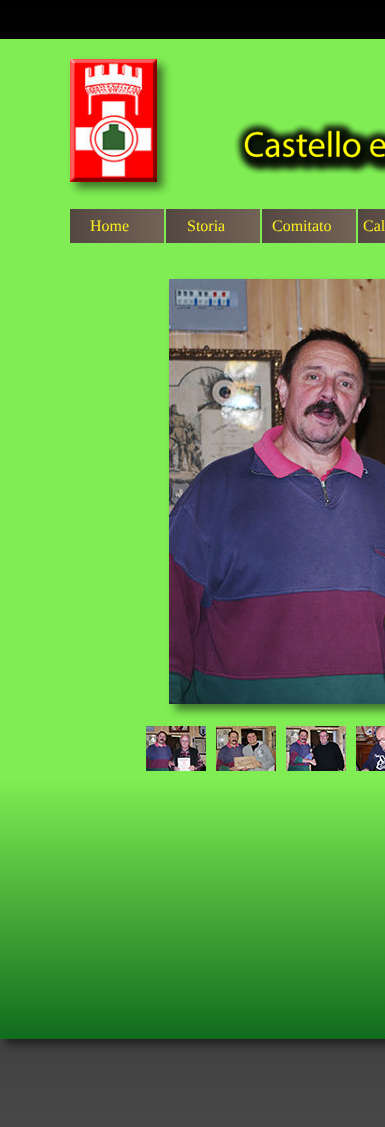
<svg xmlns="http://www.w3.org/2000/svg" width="385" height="1127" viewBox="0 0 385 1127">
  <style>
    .t1 { font: 16px Liberation Serif; fill: #fcee21; }
  </style>
  <defs>
    <linearGradient id="g1" gradientUnits="userSpaceOnUse" x1="192" y1="0" x2="193" y2="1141"><stop offset="0" stop-color="#000"/><stop offset="1" stop-color="#494848"/></linearGradient>
    <linearGradient id="g2" gradientUnits="userSpaceOnUse" x1="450" y1="39" x2="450" y2="1039"><stop offset="0.74" stop-color="#7fed53"/><stop offset="1" stop-color="#106b1d"/></linearGradient>
    <linearGradient id="g3" gradientUnits="userSpaceOnUse" x1="70" y1="226" x2="164" y2="226"><stop offset="0" stop-color="#534741"/><stop offset="1" stop-color="#736357"/></linearGradient>
    <linearGradient id="g4" gradientUnits="userSpaceOnUse" x1="166" y1="226" x2="260" y2="226"><stop offset="0" stop-color="#534741"/><stop offset="1" stop-color="#736357"/></linearGradient>
    <linearGradient id="g5" gradientUnits="userSpaceOnUse" x1="262" y1="226" x2="356" y2="226"><stop offset="0" stop-color="#534741"/><stop offset="1" stop-color="#736357"/></linearGradient>
    <linearGradient id="g6" gradientUnits="userSpaceOnUse" x1="358" y1="226" x2="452" y2="226"><stop offset="0" stop-color="#534741"/><stop offset="1" stop-color="#736357"/></linearGradient>
  </defs>
  <rect width="100%" height="100%" fill="#fff"/>
  <rect x="0" y="0" width="385" height="1127" fill="url(#g1)"/>
  <rect x="6" y="45" width="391" height="1000" fill="#00000080" filter="blur(4px)"/>
  <rect x="0" y="39" width="385" height="1000" fill="url(#g2)"/>
  <rect x="76" y="65" width="87" height="123" fill="#00000080" filter="blur(4px)"/>
  <image x="70" y="59" width="87" height="123" href="images/1.png"/>
  <image x="234" y="120" width="151" height="55" href="images/2.png"/>
  <rect x="70" y="209" width="94" height="34" fill="url(#g3)"/>
  <text x="90" y="231" class="t1">Home</text>
  <rect x="166" y="209" width="94" height="34" fill="url(#g4)"/>
  <text x="187" y="231" class="t1">Storia</text>
  <rect x="262" y="209" width="94" height="34" fill="url(#g5)"/>
  <text x="272" y="231" class="t1">Comitato</text>
  <rect x="358" y="209" width="27" height="34" fill="url(#g6)"/>
  <text x="363" y="231" class="t1">Cal</text>
  <rect x="175" y="285" width="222" height="425" fill="#00000080" filter="blur(4px)"/>
  <image x="169" y="279" width="216" height="425" href="images/3.png"/>
  <image x="146" y="726" width="60" height="45" href="images/4.png"/>
  <image x="216" y="726" width="60" height="45" href="images/5.png"/>
  <image x="286" y="726" width="60" height="45" href="images/6.png"/>
  <image x="356" y="726" width="29" height="45" href="images/7.png"/>
</svg>
